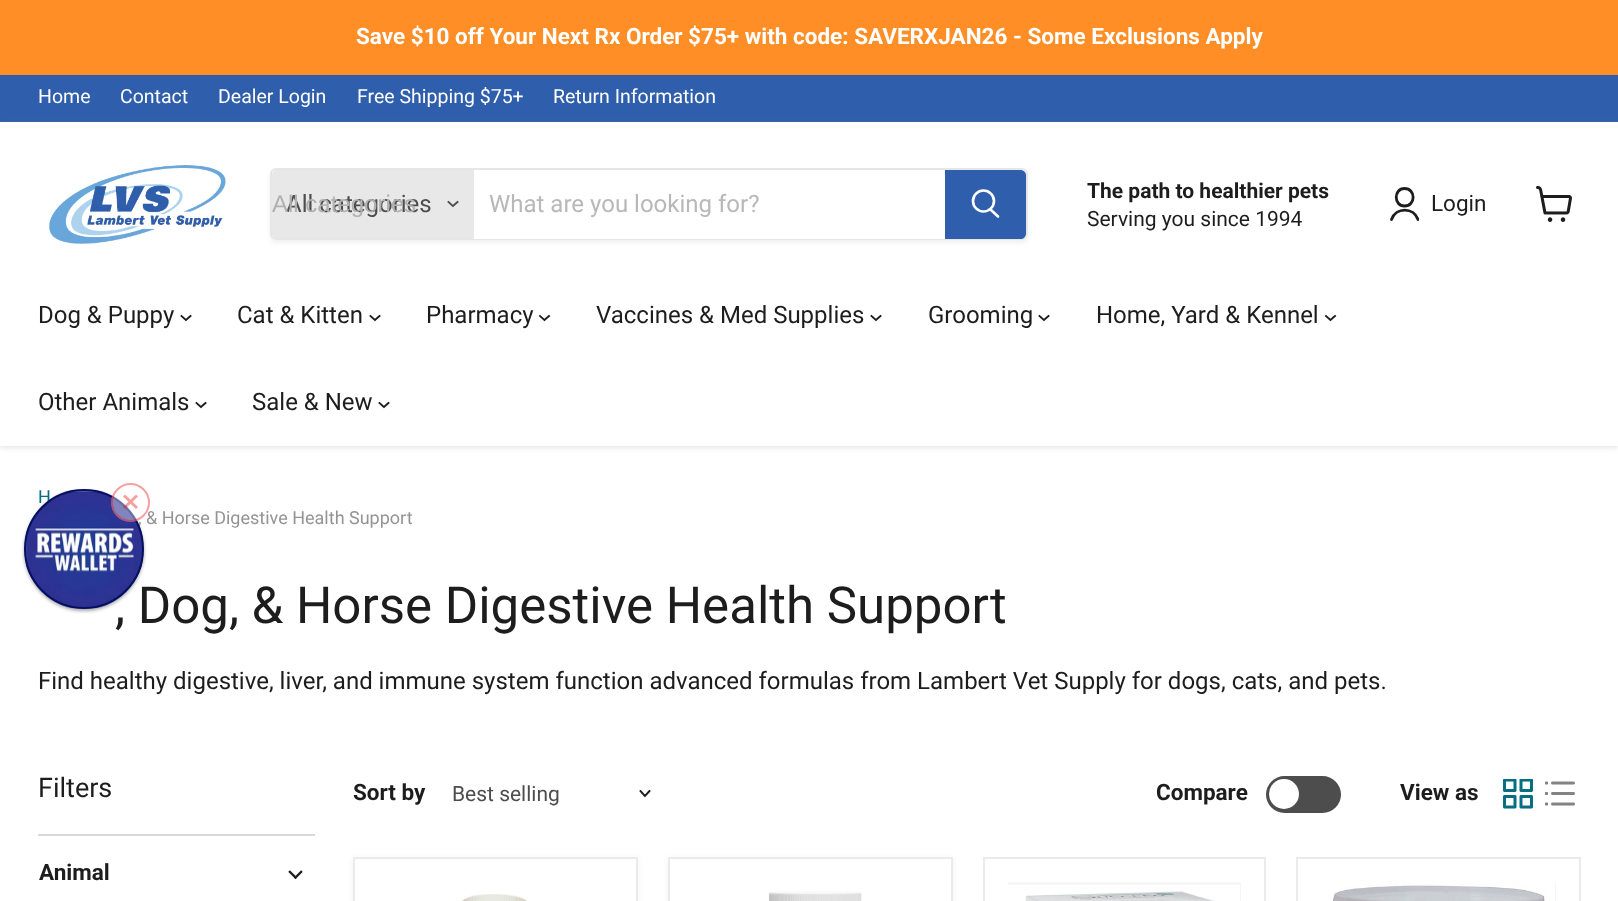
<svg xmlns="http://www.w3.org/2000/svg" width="1618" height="901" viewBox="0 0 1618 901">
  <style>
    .t1 { font: bold 22.5px Roboto; fill: #fff; }
    .t2 { font: 19.5px Roboto; fill: #fff; }
    .t3 { font: 24px Roboto; fill: #4d4d4d; }
    .t4 { font: 24px Liberation Sans; fill: #b1b1b1; }
    .t5 { font: 24px Roboto; fill: #b8b8b8; }
    .t6 { font: bold 21px Roboto; fill: #1d1d1d; }
    .t7 { font: 21px Roboto; fill: #1d1d1d; }
    .t8 { font: 22.5px Roboto; fill: #1d1d1d; }
    .t9 { font: 24px Roboto; fill: #1d1d1d; }
    .t10 { font: 18px Roboto; fill: #046e82; }
    .t11 { font: 18px Roboto; fill: #949494; }
    .t12 { font: 51px Roboto; fill: #1d1d1d; }
    .t13 { font: 27px Roboto; fill: #1d1d1d; }
    .t14 { font: bold 22.5px Roboto; fill: #1d1d1d; }
    .t15 { font: 21px Roboto; fill: #4d4d4d; }
  </style>
  <defs>
    <clipPath id="clip1"><path d="M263 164H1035V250H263ZM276 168H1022C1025.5 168 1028 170.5 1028 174V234C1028 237.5 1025.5 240 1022 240H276C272.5 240 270 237.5 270 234V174C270 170.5 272.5 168 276 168Z" clip-rule="evenodd"/></clipPath>
    <clipPath id="clip2"><rect x="1389" y="186" width="30" height="36"/></clipPath>
  </defs>
  <rect width="100%" height="100%" fill="#fff"/>
  <rect x="0" y="0" width="1618" height="75" fill="#ff8e26"/>
  <text x="356" y="44" class="t1">Save $10 off Your Next Rx Order $75+ with code: SAVERXJAN26 - Some Exclusions Apply</text>
  <rect x="0" y="75" width="1618" height="47" fill="#2f5fac"/>
  <text x="38" y="103" class="t2">Home</text>
  <text x="120" y="103" class="t2">Contact</text>
  <text x="218" y="103" class="t2">Dealer Login</text>
  <text x="357" y="103" class="t2">Free Shipping $75+</text>
  <text x="553" y="103" class="t2">Return Information</text>
  <rect x="0" y="123" width="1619" height="324" fill="#80808040" filter="blur(3px)"/>
  <rect x="0" y="122" width="1618" height="324" fill="#fff"/>
  <image x="47" y="165" width="180" height="81" href="images/1.png"/>
  <g clip-path="url(#clip1)">
    <rect x="270" y="171" width="758" height="72" rx="6" fill="#8080801c" filter="blur(2px)"/>
  </g>
  <rect x="271" y="169" width="756" height="70" rx="5" fill="none" stroke="#80808033" stroke-width="2"/>
  <path d="M277 170H474V239H277C274 239 272 237 272 234V175C272 172 274 170 277 170Z" fill="#e8e8e8"/>
  <text x="286" y="212" class="t3">All categories</text>
  <text x="272" y="212" class="t4">All categories</text>
  <path d="M453 206L457.5 202M453 206L448.5 202" fill="none" stroke="#4d4d4d" stroke-width="1.9" stroke-linecap="square"/>
  <rect x="474" y="238" width="471" height="1" fill="#fff"/>
  <text x="489" y="212" class="t5">What are you looking for?</text>
  <path d="M946 171H1021C1023 171 1025 173 1025 175V234C1025 236 1023 238 1021 238H946Z" fill="#2f5fac" stroke="#2f5fac" stroke-width="2"/>
  <path d="M998 216.5L990.5 209.5" fill="none" stroke="#fff" stroke-width="2.6" stroke-linecap="round"/>
  <circle cx="983.5" cy="201" r="10.5" fill="none" stroke="#fff" stroke-width="2.6"/>
  <text x="1087" y="198" class="t6">The path to healthier pets</text>
  <text x="1087" y="226" class="t7">Serving you since 1994</text>
  <path d="M1404.5 206C1416 206 1416 188.5 1404.5 188.5C1393.5 188.5 1393.5 206 1404.5 206Z" fill="none" stroke="#1d1d1d" stroke-width="2.8" stroke-linecap="round" stroke-linejoin="round"/>
  <g clip-path="url(#clip2)">
    <path d="M1418 219.5C1413.5 207 1396 207 1391.5 219.5" fill="none" stroke="#1d1d1d" stroke-width="2.8" stroke-linecap="round" stroke-linejoin="round"/>
  </g>
  <text x="1431" y="211" class="t8">Login</text>
  <image x="1536" y="186" width="36" height="36" href="images/2.png"/>
  <text x="38" y="323" class="t9">Dog &amp; Puppy</text>
  <path d="M186 320L190.5 316M186 320L181.5 316" fill="none" stroke="#1d1d1d" stroke-width="1.9" stroke-linecap="square"/>
  <text x="237" y="323" class="t9">Cat &amp; Kitten</text>
  <path d="M375 320L379.5 316M375 320L370.5 316" fill="none" stroke="#1d1d1d" stroke-width="1.9" stroke-linecap="square"/>
  <text x="426" y="323" class="t9">Pharmacy</text>
  <path d="M544.5 320L549 316M544.5 320L540 316" fill="none" stroke="#1d1d1d" stroke-width="1.9" stroke-linecap="square"/>
  <text x="596" y="323" class="t9">Vaccines &amp; Med Supplies</text>
  <path d="M876 320L880.5 316M876 320L871.5 316" fill="none" stroke="#1d1d1d" stroke-width="1.9" stroke-linecap="square"/>
  <text x="928" y="323" class="t9">Grooming</text>
  <path d="M1044 320L1048.5 316M1044 320L1039.5 316" fill="none" stroke="#1d1d1d" stroke-width="1.9" stroke-linecap="square"/>
  <text x="1096" y="323" class="t9">Home, Yard &amp; Kennel</text>
  <path d="M1330.5 320L1335 316M1330.5 320L1326 316" fill="none" stroke="#1d1d1d" stroke-width="1.9" stroke-linecap="square"/>
  <text x="38" y="410" class="t9">Other Animals</text>
  <path d="M201 407L205.5 403M201 407L196.5 403" fill="none" stroke="#1d1d1d" stroke-width="1.9" stroke-linecap="square"/>
  <text x="252" y="410" class="t9">Sale &amp; New</text>
  <path d="M384 407L388.5 403M384 407L379.5 403" fill="none" stroke="#1d1d1d" stroke-width="1.9" stroke-linecap="square"/>
  <rect x="24" y="491" width="120" height="120" rx="60" fill="#0000003d" filter="blur(1.5px)"/>
  <rect x="24" y="491" width="120" height="120" rx="60" fill="#0000001f" filter="blur(2px)"/>
  <text x="38" y="503" class="t10">H</text>
  <text x="138" y="524" class="t11">, &amp; Horse Digestive Health Support</text>
  <text x="115" y="623" class="t12">, Dog, &amp; Horse Digestive Health Support</text>
  <image x="25" y="490" width="118" height="118" href="images/3.png"/>
  <circle cx="84" cy="549" r="59" fill="none" stroke="#041160" stroke-width="2"/>
  <circle cx="130.5" cy="502.5" r="19.5" fill="#ffffff66"/>
  <circle cx="130.5" cy="502.5" r="18.5" fill="none" stroke="#ea111066" stroke-width="2"/>
  <path d="M136 494.5L138 496.5L125 509L123 507Z" fill="#ea111066"/>
  <path d="M123 496.5L125 494.5L138 507L136 509Z" fill="#f7a09f"/>
  <text x="38" y="689" class="t9">Find healthy digestive, liver, and immune system function advanced formulas from Lambert Vet Supply for dogs, cats, and pets.</text>
  <text x="38" y="797" class="t13">Filters</text>
  <rect x="38" y="834" width="277" height="2" fill="#d9d9d9"/>
  <text x="39" y="880" class="t14">Animal</text>
  <image x="288" y="870" width="15" height="9" href="images/4.png"/>
  <text x="353" y="800" class="t14">Sort by</text>
  <text x="452" y="801" class="t15">Best selling</text>
  <path d="M645 796L649.5 791M645 796L640.5 791" fill="none" stroke="#1d1d1d" stroke-width="1.9" stroke-linecap="square"/>
  <text x="1156" y="800" class="t14">Compare</text>
  <rect x="1266" y="776" width="75" height="37" rx="18.5" fill="#4d4d4d"/>
  <circle cx="1284" cy="794" r="15" fill="#fff"/>
  <text x="1400" y="800" class="t14">View as</text>
  <image x="1503" y="779" width="30" height="30" href="images/5.png"/>
  <image x="1545" y="781" width="30" height="25" href="images/6.png"/>
  <rect x="353" y="858" width="285" height="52" fill="#8080801c" filter="blur(3px)"/>
  <rect x="354" y="858" width="283" height="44" fill="#fff" stroke="#ebebeb" stroke-width="2"/>
  <image x="462" y="894" width="66" height="7" href="images/7.png"/>
  <rect x="668" y="858" width="285" height="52" fill="#8080801c" filter="blur(3px)"/>
  <rect x="669" y="858" width="283" height="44" fill="#fff" stroke="#ebebeb" stroke-width="2"/>
  <image x="693" y="882" width="234" height="19" href="images/8.png"/>
  <rect x="984" y="858" width="281" height="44" fill="none" stroke="#ebebeb" stroke-width="2"/>
  <rect x="1008" y="882" width="233" height="19" fill="#f6f6f6"/>
  <image x="1008" y="885" width="232" height="16" href="images/9.png"/>
  <rect x="1297" y="858" width="283" height="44" fill="none" stroke="#ebebeb" stroke-width="2"/>
  <image x="1322" y="882" width="233" height="19" href="images/10.png"/>
  <rect x="1555" y="882" width="1" height="19" fill="#f6f6f6"/>
</svg>
